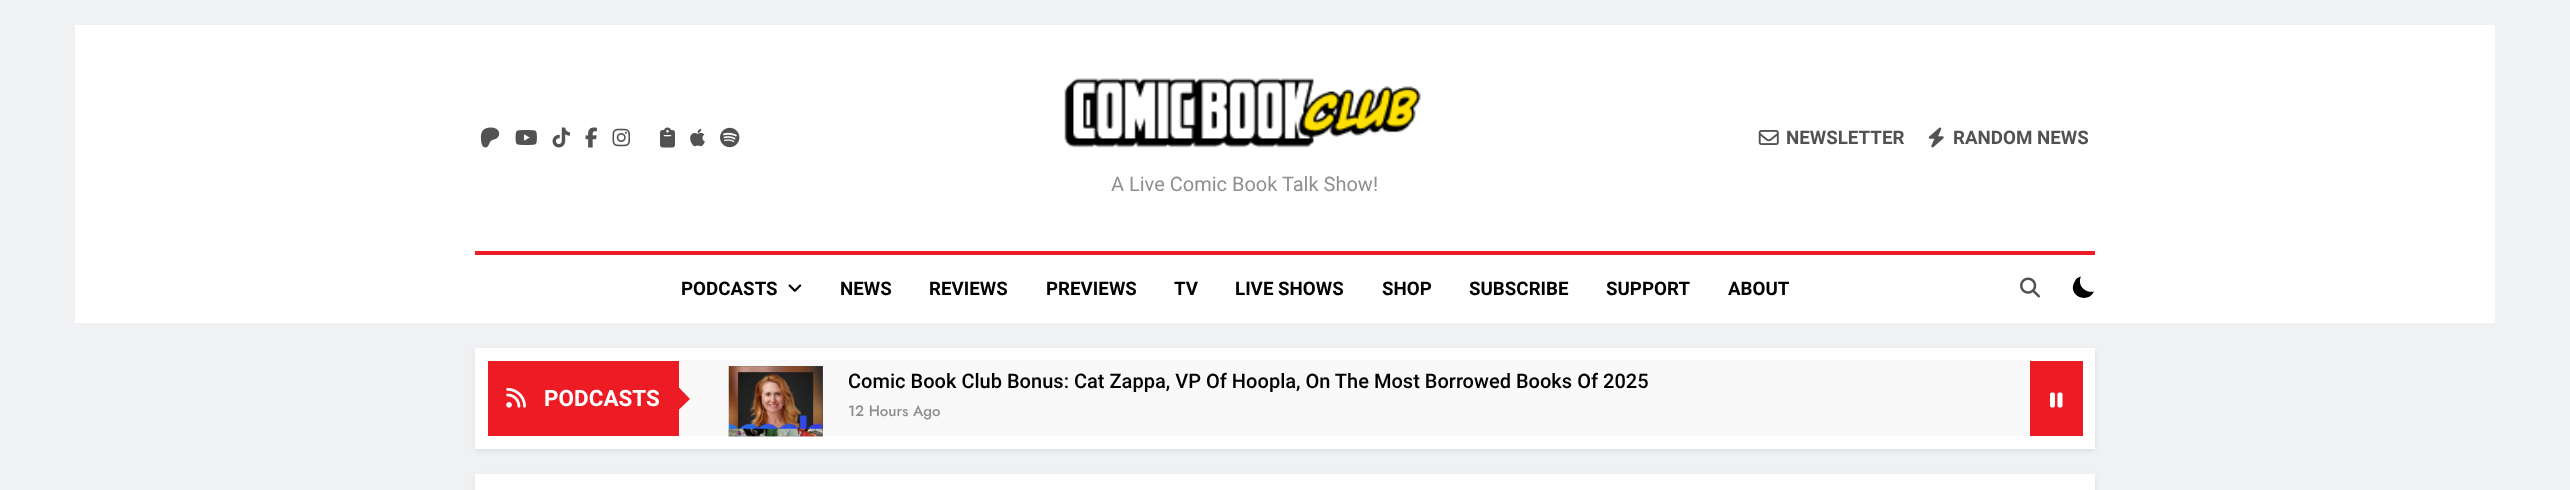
<svg xmlns="http://www.w3.org/2000/svg" width="2570" height="490" viewBox="0 0 2570 490">
  <style>
    .t1 { font: bold 18.75px Roboto; fill: #525252; }
    .t2 { font: 20px Roboto; fill: #8f8f8f; }
    .t3 { font: bold 18.75px Roboto; fill: #000; }
    .t4 { font: bold 22.5px Roboto; fill: #fff; }
    .t5 { font: 500 20.05px Roboto; fill: #000; }
    .t6 { font: 500 15px Jost; fill: #8f8f8f; }
  </style>
  <rect width="100%" height="100%" fill="#f0f1f2"/>
  <rect x="75" y="25" width="2420" height="298" fill="#fff"/>
  <image x="480" y="127" width="20" height="21" href="images/1.png"/>
  <image x="515" y="130" width="22" height="15" href="images/2.png"/>
  <image x="552" y="127" width="18" height="21" href="images/3.png"/>
  <image x="585" y="127" width="12" height="21" href="images/4.png"/>
  <image x="612" y="128" width="18" height="19" href="images/5.png"/>
  <image x="660" y="127" width="15" height="21" href="images/6.png"/>
  <image x="690" y="128" width="15" height="19" href="images/7.png"/>
  <image x="720" y="127" width="20" height="21" href="images/8.png"/>
  <image x="1758" y="130" width="21" height="15" href="images/9.png"/>
  <text x="1786" y="144" class="t1">NEWSLETTER</text>
  <image x="1928" y="127" width="16" height="21" href="images/10.png"/>
  <text x="1953" y="144" class="t1">RANDOM NEWS</text>
  <image x="1064" y="78" width="357" height="70" href="images/11.png"/>
  <text x="1111" y="191" class="t2">A Live Comic Book Talk Show!</text>
  <rect x="475" y="251" width="1620" height="4" fill="#ed1b24"/>
  <text x="681" y="295" class="t3">PODCASTS</text>
  <image x="788" y="284" width="14" height="8" href="images/12.png"/>
  <text x="840" y="295" class="t3">NEWS</text>
  <text x="929" y="295" class="t3">REVIEWS</text>
  <text x="1046" y="295" class="t3">PREVIEWS</text>
  <text x="1174" y="295" class="t3">TV</text>
  <text x="1235" y="295" class="t3">LIVE SHOWS</text>
  <text x="1382" y="295" class="t3">SHOP</text>
  <text x="1469" y="295" class="t3">SUBSCRIBE</text>
  <text x="1606" y="295" class="t3">SUPPORT</text>
  <text x="1728" y="295" class="t3">ABOUT</text>
  <image x="2020" y="277" width="20" height="21" href="images/13.png"/>
  <path d="M2094 291.5C2085 293.5 2077 285 2081 276.5C2078 277 2075.5 279 2074.5 282C2067 295 2087.5 305 2094 291.5Z" fill="#000"/>
  <rect x="475" y="350" width="1620" height="101" fill="#00000014" filter="blur(2.5px)"/>
  <rect x="475" y="348" width="1620" height="101" fill="#fff"/>
  <rect x="488" y="361" width="191" height="75" fill="#ed1b24"/>
  <image x="506" y="388" width="20" height="20" href="images/14.png"/>
  <text x="544" y="406" class="t4">PODCASTS</text>
  <rect x="679" y="360" width="1351" height="76" fill="#f9f9f9"/>
  <path d="M677.5 411V386L690 399Z" fill="#ed1b24"/>
  <rect x="729" y="366" width="94" height="63" fill="#58454f"/>
  <image x="728" y="366" width="95" height="71" href="images/15.png"/>
  <text x="848" y="388" class="t5">Comic Book Club Bonus: Cat Zappa, VP Of Hoopla, On The Most Borrowed Books Of 2025</text>
  <text x="848" y="416" class="t6">12 Hours Ago</text>
  <rect x="822" y="429" width="1" height="7" fill="#7c695f"/>
  <image x="728" y="428" width="95" height="9" href="images/16.png"/>
  <rect x="2030" y="361" width="53" height="75" fill="#ed1b24"/>
  <image x="2050" y="392" width="13" height="16" href="images/17.png"/>
  <rect x="475" y="476" width="1620" height="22" fill="#00000014" filter="blur(2.5px)"/>
  <rect x="475" y="474" width="1620" height="16" fill="#fff"/>
</svg>
